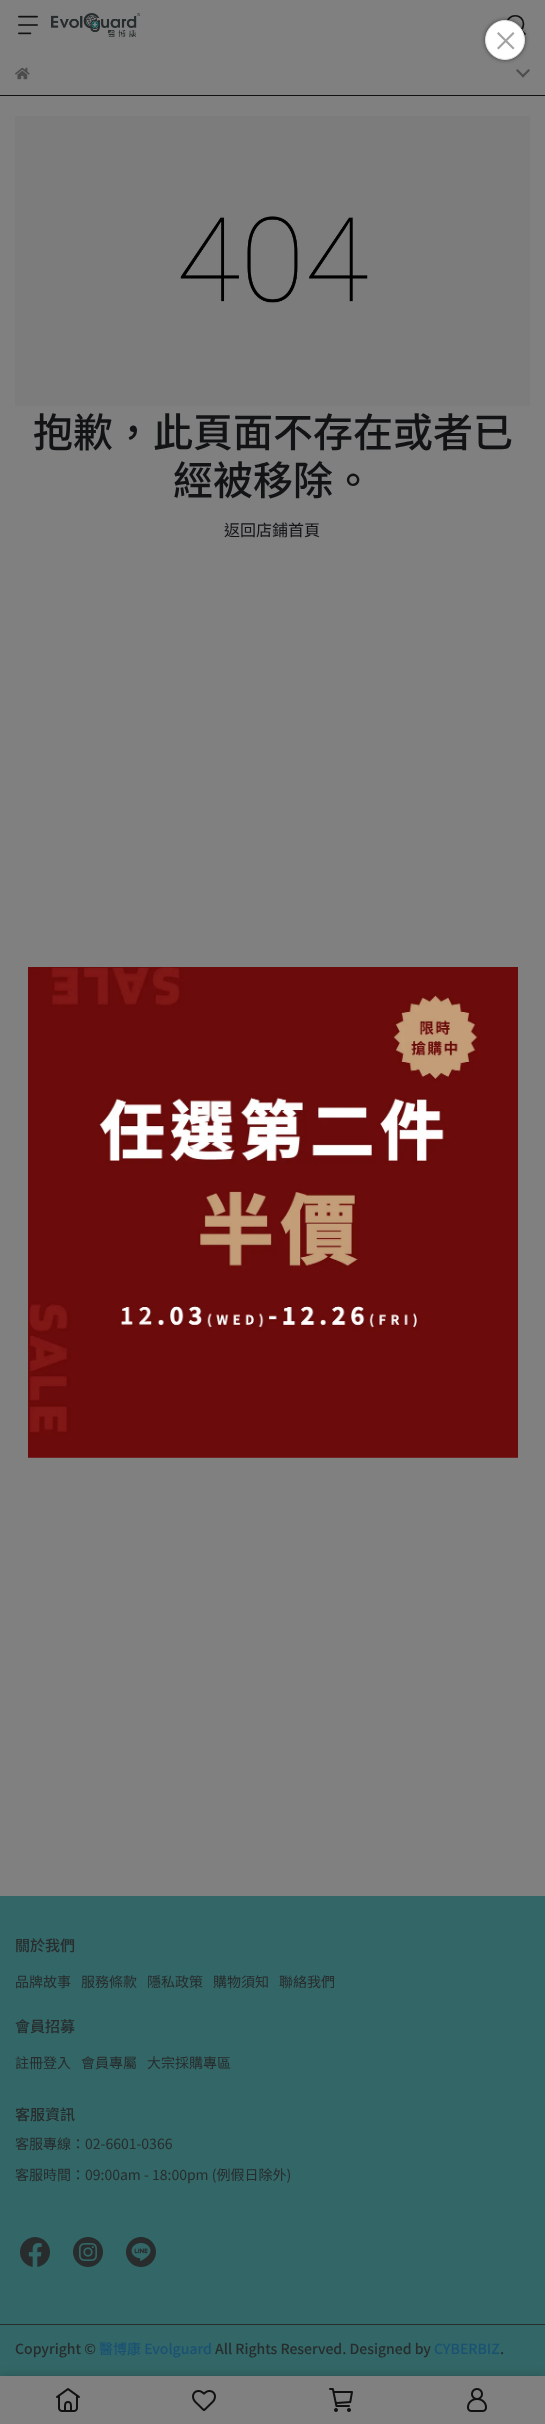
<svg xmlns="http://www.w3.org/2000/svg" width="545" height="2424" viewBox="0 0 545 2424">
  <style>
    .t1 { font: 500 40px Noto Sans TC; fill: #111315; }
    .t2 { font: 16px Noto Sans TC; fill: #111315; }
    .t3 { font: 500 15px Noto Sans TC; fill: #282c2d; }
    .t4 { font: 14px Noto Sans TC; fill: #282c2d; }
    .t5 { font: 500 14px Noto Sans TC; fill: #282c2d; }
    .t6 { font: 500 14px Noto Sans TC; fill: #1a5274; }
  </style>
  <rect width="100%" height="100%" fill="#808080"/>
  <image x="18" y="15" width="20" height="20" href="images/1.png"/>
  <image x="51" y="13" width="89" height="25" href="images/2.png"/>
  <path d="M523.5 24C523.5 35 507 35 507 24C507 13 523.5 13 523.5 24ZM522 31L525 34" fill="none" stroke="#111" stroke-width="1.7" stroke-linecap="round" stroke-linejoin="round"/>
  <rect x="0" y="1896" width="545" height="480" fill="#366"/>
  <rect x="0" y="2376" width="545" height="48" fill="#00000033" filter="blur(5px)"/>
  <rect x="0" y="2376" width="545" height="48" fill="#808080"/>
  <image x="56" y="2388" width="24" height="24" href="images/3.png"/>
  <image x="192" y="2390" width="24" height="21" href="images/4.png"/>
  <image x="329" y="2388" width="24" height="24" href="images/5.png"/>
  <image x="467" y="2388" width="20" height="24" href="images/6.png"/>
  <rect x="485" y="20" width="40" height="40" rx="20" fill="#00000080" filter="blur(2px)"/>
  <circle cx="505" cy="40" r="19.5" fill="#fff" stroke="#e2e2e2"/>
  <path d="M498.5 32L514.5 48L513 49.5L497 33.5Z" fill="#a3a3a3"/>
  <path d="M497 48L513 32L514.5 33.5L498.5 49.5Z" fill="#a3a3a3"/>
  <image x="28" y="967" width="490" height="491" href="images/7.png"/>
  <rect x="0" y="95" width="545" height="1" fill="#111"/>
  <image x="15" y="67" width="15" height="13" href="images/8.png"/>
  <path d="M521.5 76L528.5 69L530 70.5L523 77.5Z" fill="#4d4d4d"/>
  <path d="M516 70.5L517.5 69L524.5 76L523 77.5Z" fill="#4d4d4d"/>
  <image x="15" y="116" width="515" height="290" href="images/9.png"/>
  <text x="33" y="447" class="t1">抱歉，此頁面不存在或者已</text>
  <text x="173" y="495" class="t1">經被移除。</text>
  <text x="224" y="536" class="t2">返回店鋪首頁</text>
  <text x="15" y="1951" class="t3">關於我們</text>
  <text x="15" y="1987" class="t4">品牌故事</text>
  <text x="81" y="1987" class="t4">服務條款</text>
  <text x="147" y="1987" class="t4">隱私政策</text>
  <text x="213" y="1987" class="t4">購物須知</text>
  <text x="279" y="1987" class="t4">聯絡我們</text>
  <text x="15" y="2032" class="t3">會員招募</text>
  <text x="15" y="2068" class="t4">註冊登入</text>
  <text x="81" y="2068" class="t4">會員專屬</text>
  <text x="147" y="2068" class="t4">大宗採購專區</text>
  <text x="15" y="2120" class="t3">客服資訊</text>
  <text x="15" y="2149" class="t4">客服專線：02-6601-0366</text>
  <text x="15" y="2180" class="t4">客服時間：09:00am - 18:00pm (例假日除外)</text>
  <image x="20" y="2237" width="30" height="30" href="images/10.png"/>
  <image x="73" y="2237" width="30" height="30" href="images/11.png"/>
  <image x="126" y="2237" width="30" height="30" href="images/12.png"/>
  <rect x="0" y="2324" width="545" height="1" fill="#282c2d"/>
  <text x="15" y="2354" class="t5">Copyright ©</text>
  <text x="99" y="2354" class="t6">醫博康 Evolguard</text>
  <text x="215" y="2354" class="t5">All Rights Reserved. Designed by</text>
  <text x="434" y="2354" class="t6">CYBERBIZ</text>
  <text x="500" y="2354" class="t5">.</text>
</svg>
